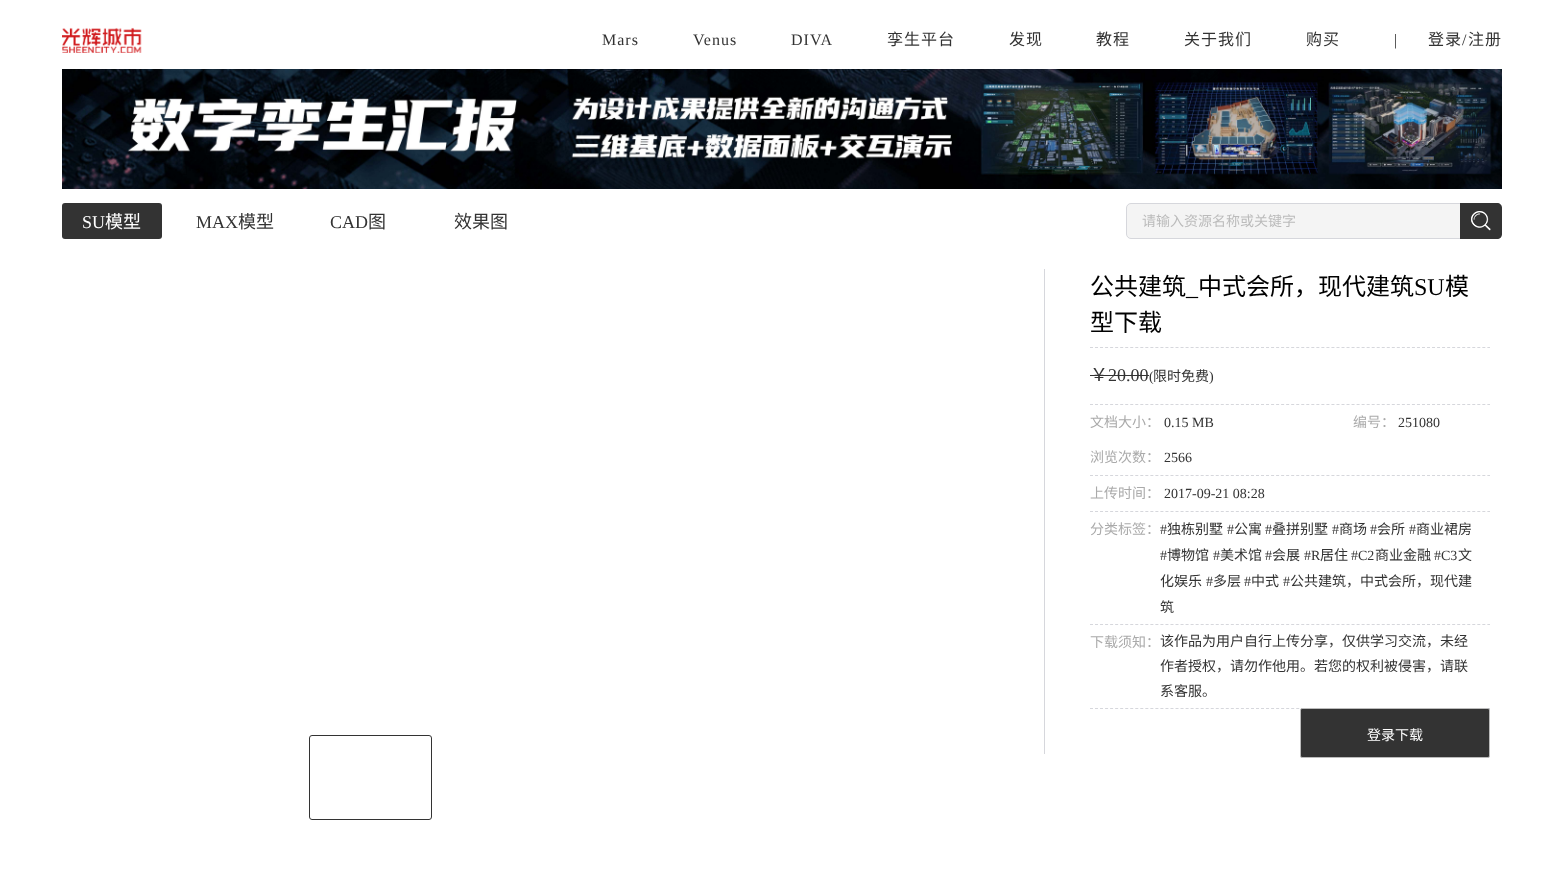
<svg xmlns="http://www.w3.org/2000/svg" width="1564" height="877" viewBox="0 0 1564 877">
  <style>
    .t1 { font: 16px Liberation Serif; letter-spacing: 1px; fill: #333; }
    .t2 { font: 16px Noto Sans CJK SC; letter-spacing: 1px; fill: #333; }
    .t3 { font: 18px Liberation Serif; fill: #fff; }
    .t4 { font: 18px Noto Sans CJK SC; fill: #fff; }
    .t5 { font: 18px Liberation Serif; fill: #333; }
    .t6 { font: 18px Noto Sans CJK SC; fill: #333; }
    .t7 { font: 14px Noto Sans CJK SC; fill: #bbb; }
    .t8 { font: 24px Noto Sans CJK SC; fill: #000; }
    .t9 { font: 24px Liberation Serif; fill: #000; }
    .t10 { font: 14px Liberation Serif; fill: #333; }
    .t11 { font: 14px Noto Sans CJK SC; fill: #333; }
    .t12 { font: 14px Noto Sans CJK SC; fill: #aaa; }
    .t13 { font: 14px Noto Sans CJK SC; fill: #fff; }
  </style>
  <rect width="100%" height="100%" fill="#fff"/>
  <image x="62" y="27" width="80" height="26" href="images/1.png"/>
  <text x="602" y="45" class="t1">Mars</text>
  <text x="693" y="45" class="t1">Venus</text>
  <text x="791" y="45" class="t1">DIVA</text>
  <text x="887" y="45" class="t2">孪生平台</text>
  <text x="1009" y="45" class="t2">发现</text>
  <text x="1096" y="45" class="t2">教程</text>
  <text x="1184" y="45" class="t2">关于我们</text>
  <text x="1306" y="45" class="t2">购买</text>
  <text x="1394" y="45" class="t1">|</text>
  <text x="1428" y="45" class="t2">登录</text>
  <text x="1462" y="45" class="t1">/</text>
  <text x="1468" y="45" class="t2">注册</text>
  <image x="62" y="69" width="1440" height="120" href="images/2.png"/>
  <rect x="62" y="203" width="100" height="36" rx="3" fill="#333"/>
  <text x="82" y="228" class="t3">SU</text>
  <text x="105" y="228" class="t4">模型</text>
  <text x="196" y="228" class="t5">MAX</text>
  <text x="238" y="228" class="t6">模型</text>
  <text x="330" y="228" class="t5">CAD</text>
  <text x="368" y="228" class="t6">图</text>
  <text x="454" y="228" class="t6">效果图</text>
  <path d="M1131 203.5H1465.5V238.5H1131C1128.5 238.5 1126.5 236.5 1126.5 234V208C1126.5 205.5 1128.5 203.5 1131 203.5Z" fill="#f4f4f4" stroke="#d6d7dc"/>
  <text x="1142" y="226" class="t7">请输入资源名称或关键字</text>
  <path d="M1460 203H1497C1500 203 1502 205 1502 208V234C1502 237 1500 239 1497 239H1460Z" fill="#333"/>
  <image x="1471" y="211" width="20" height="20" href="images/3.png"/>
  <rect x="1044" y="269" width="1" height="485" fill="#d6d7dc"/>
  <path d="M1090 347.5H1490" fill="none" stroke="#d6d7dc" stroke-dasharray="3 2.03"/>
  <text x="1090" y="295" class="t8">公共建筑</text>
  <text x="1198" y="295" class="t8">中式会所，现代建筑</text>
  <text x="1414" y="295" class="t9">SU</text>
  <text x="1445" y="295" class="t8">模</text>
  <text x="1186" y="295" class="t9">_</text>
  <text x="1090" y="331" class="t8">型下载</text>
  <path d="M1090 404.5H1490" fill="none" stroke="#d6d7dc" stroke-dasharray="3 2.03"/>
  <text x="1090" y="381" class="t6">￥</text>
  <text x="1108" y="381" class="t5">20.00</text>
  <rect x="1090" y="375" width="59" height="1" fill="#333"/>
  <text x="1149" y="381" class="t10">(</text>
  <text x="1153" y="381" class="t11">限时免费</text>
  <text x="1209" y="381" class="t10">)</text>
  <path d="M1090 475.5H1490" fill="none" stroke="#d6d7dc" stroke-dasharray="3 2.03"/>
  <text x="1090" y="427" class="t12">文档大小：</text>
  <text x="1164" y="427" class="t10">0.15 MB</text>
  <text x="1353" y="427" class="t12">编号：</text>
  <text x="1398" y="427" class="t10">251080</text>
  <text x="1090" y="462" class="t12">浏览次数：</text>
  <text x="1164" y="462" class="t10">2566</text>
  <path d="M1090 511.5H1490" fill="none" stroke="#d6d7dc" stroke-dasharray="3 2.03"/>
  <text x="1090" y="498" class="t12">上传时间：</text>
  <text x="1164" y="498" class="t10">2017-09-21 08:28</text>
  <path d="M1090 624.5H1490" fill="none" stroke="#d6d7dc" stroke-dasharray="3 2.03"/>
  <text x="1090" y="534" class="t12">分类标签：</text>
  <text x="1160" y="534" class="t10">#</text>
  <text x="1167" y="534" class="t11">独栋别墅</text>
  <text x="1227" y="534" class="t10">#</text>
  <text x="1234" y="534" class="t11">公寓</text>
  <text x="1265" y="534" class="t10">#</text>
  <text x="1272" y="534" class="t11">叠拼别墅</text>
  <text x="1332" y="534" class="t10">#</text>
  <text x="1339" y="534" class="t11">商场</text>
  <text x="1370" y="534" class="t10">#</text>
  <text x="1377" y="534" class="t11">会所</text>
  <text x="1409" y="534" class="t10">#</text>
  <text x="1416" y="534" class="t11">商业裙房</text>
  <text x="1160" y="560" class="t10">#</text>
  <text x="1167" y="560" class="t11">博物馆</text>
  <text x="1213" y="560" class="t10">#</text>
  <text x="1220" y="560" class="t11">美术馆</text>
  <text x="1265" y="560" class="t10">#</text>
  <text x="1272" y="560" class="t11">会展</text>
  <text x="1304" y="560" class="t10">#R</text>
  <text x="1320" y="560" class="t11">居住</text>
  <text x="1351" y="560" class="t10">#C2</text>
  <text x="1375" y="560" class="t11">商业金融</text>
  <text x="1434" y="560" class="t10">#C3</text>
  <text x="1458" y="560" class="t11">文</text>
  <text x="1160" y="586" class="t11">化娱乐</text>
  <text x="1206" y="586" class="t10">#</text>
  <text x="1213" y="586" class="t11">多层</text>
  <text x="1244" y="586" class="t10">#</text>
  <text x="1251" y="586" class="t11">中式</text>
  <text x="1283" y="586" class="t10">#</text>
  <text x="1290" y="586" class="t11">公共建筑，中式会所，现代建</text>
  <text x="1160" y="612" class="t11">筑</text>
  <path d="M1090 708.5H1490" fill="none" stroke="#d6d7dc" stroke-dasharray="3 2.03"/>
  <text x="1090" y="647" class="t12">下载须知：</text>
  <text x="1160" y="646" class="t11">该作品为用户自行上传分享，仅供学习交流，未经</text>
  <text x="1160" y="671" class="t11">作者授权，请勿作他用。若您的权利被侵害，请联</text>
  <text x="1160" y="696" class="t11">系客服。</text>
  <rect x="1300.5" y="708.5" width="189" height="49" rx="1.5" fill="#333" stroke="#bbb"/>
  <text x="1367" y="740" class="t13">登录下载</text>
  <rect x="309.5" y="735.5" width="122" height="84" rx="2.5" fill="none" stroke="#333"/>
</svg>
